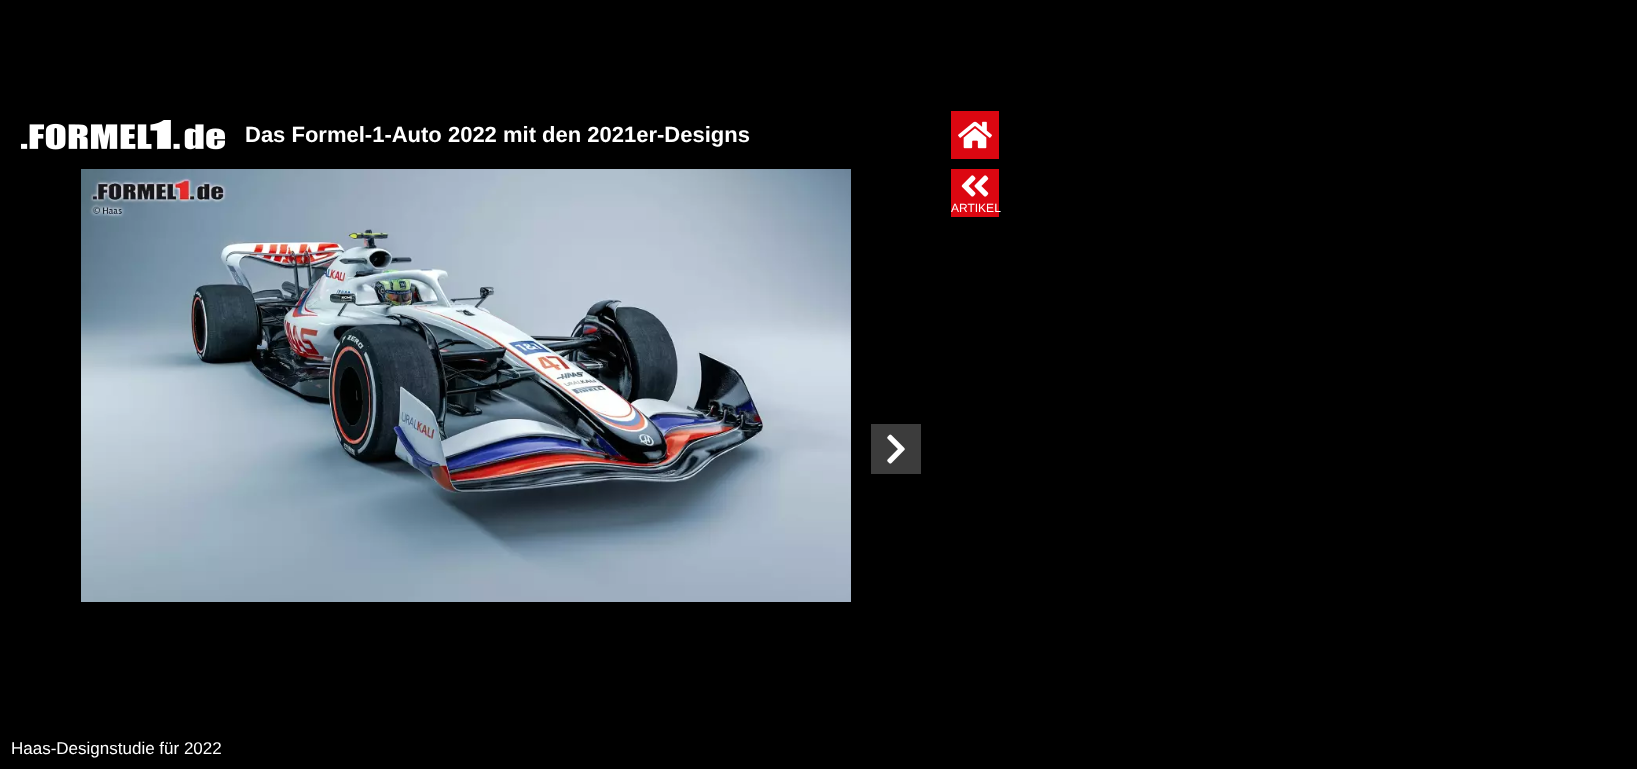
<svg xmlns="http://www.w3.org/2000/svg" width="1637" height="769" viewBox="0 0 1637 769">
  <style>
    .t1 { font: bold 22px Liberation Sans; fill: #fff; }
    .t2 { font: 12px Liberation Sans; fill: #fff; }
    .t3 { font: 17px Liberation Sans; fill: #fff; }
  </style>
  <rect width="100%" height="100%" fill="#000"/>
  <image x="21" y="120" width="204" height="30" href="images/1.png"/>
  <text x="245" y="142" class="t1">Das Formel-1-Auto 2022 mit den 2021er-Designs</text>
  <rect x="951" y="111" width="48" height="48" fill="#dc0711"/>
  <image x="958" y="121" width="34" height="28" href="images/2.png"/>
  <rect x="951" y="169" width="48" height="48" fill="#dc0711"/>
  <image x="961" y="175" width="28" height="22" href="images/3.png"/>
  <text x="951" y="212" class="t2">ARTIKEL</text>
  <image x="81" y="169" width="770" height="433" href="images/4.png"/>
  <rect x="871" y="424" width="50" height="50" fill="#3c3c3c"/>
  <image x="887" y="434" width="18" height="30" href="images/5.png"/>
  <text x="11" y="754" class="t3">Haas-Designstudie für 2022</text>
</svg>
